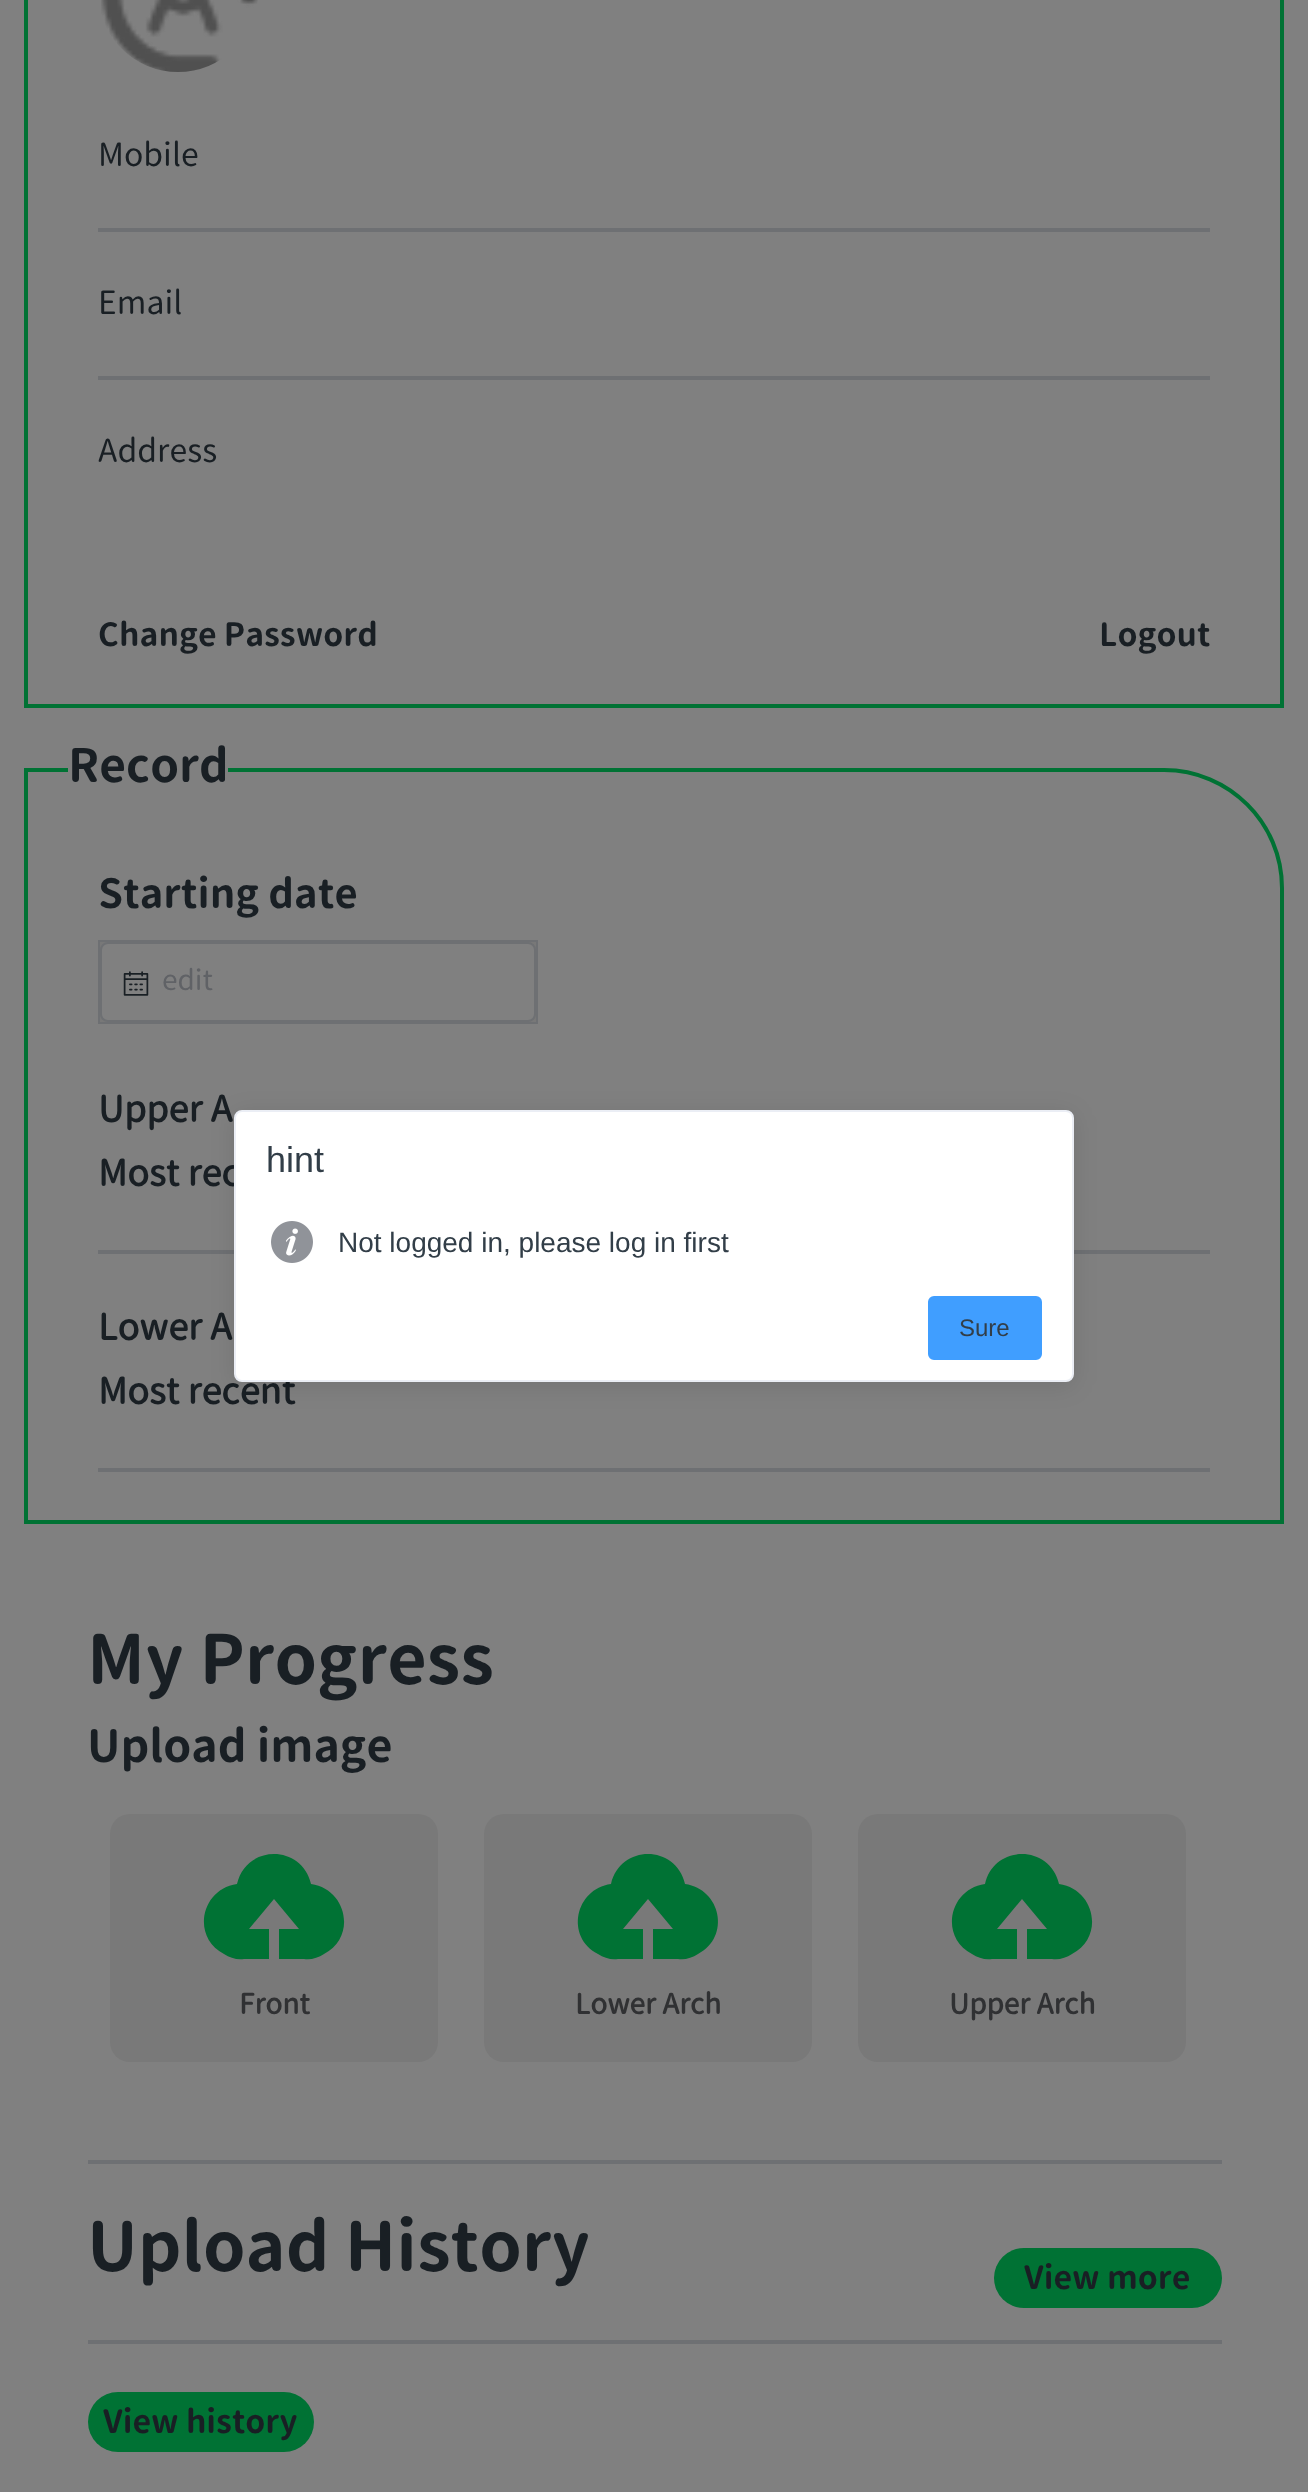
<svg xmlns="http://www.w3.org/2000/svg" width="1308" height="2492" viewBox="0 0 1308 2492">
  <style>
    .t1 { font: 32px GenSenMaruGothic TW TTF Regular; fill: #191f24; }
    .t2 { font: bold 32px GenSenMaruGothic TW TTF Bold; fill: #191f24; }
    .t3 { font: bold 46px GenSenMaruGothic TW TTF Bold; fill: #191f24; }
    .t4 { font: bold 40px GenSenMaruGothic TW TTF Bold; fill: #191f24; }
    .t5 { font: 28px GenSenMaruGothic TW TTF Regular; fill: #606266; }
    .t6 { font: bold 36px GenSenMaruGothic TW TTF Regular; fill: #191f24; }
    .t7 { font: bold 68px GenSenMaruGothic TW TTF Bold; fill: #191f24; }
    .t8 { font: bold 44.75px GenSenMaruGothic TW TTF Bold; fill: #191f24; }
    .t9 { font: bold 28px GenSenMaruGothic TW TTF Regular; fill: #303133; }
    .t10 { font: 36px Liberation Sans; fill: #323e48; }
    .t11 { font: 28px Liberation Sans; fill: #323e48; }
    .t12 { font: 24px Liberation Sans; fill: #323e48; }
  </style>
  <rect width="100%" height="100%" fill="#808080"/>
  <rect x="26" y="-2" width="1256" height="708" fill="none" stroke="#007234" stroke-width="4"/>
  <image x="101" y="0" width="157" height="72" href="images/1.png"/>
  <text x="98" y="166" class="t1">Mobile</text>
  <rect x="98" y="228" width="1112" height="4" fill="#6e7073"/>
  <text x="98" y="314" class="t1">Email</text>
  <rect x="98" y="376" width="1112" height="4" fill="#6e7073"/>
  <text x="98" y="462" class="t1">Address</text>
  <text x="98" y="646" class="t2">Change Password</text>
  <text x="1099" y="646" class="t2">Logout</text>
  <path d="M26 770H1164C1229 770 1282 823 1282 888V1522H26Z" fill="none" stroke="#007234" stroke-width="4"/>
  <rect x="68" y="768" width="160" height="4" fill="#808080"/>
  <text x="68" y="782" class="t3">Record</text>
  <text x="98" y="908" class="t4">Starting date</text>
  <rect x="99" y="941" width="438" height="82" fill="#787878" stroke="#6e7073" stroke-width="2"/>
  <rect x="101" y="943" width="434" height="78" rx="7" fill="#808080" stroke="#6e7073" stroke-width="2"/>
  <image x="123" y="971" width="26" height="25" href="images/2.png"/>
  <text x="162" y="990" class="t5">edit</text>
  <text x="98" y="1122" class="t6">Upper A</text>
  <text x="98" y="1186" class="t6">Most rec</text>
  <rect x="98" y="1250" width="1112" height="4" fill="#6e7073"/>
  <text x="98" y="1340" class="t6">Lower A</text>
  <text x="98" y="1404" class="t6">Most recent</text>
  <rect x="98" y="1468" width="1112" height="4" fill="#6e7073"/>
  <text x="87" y="1684" class="t7">My Progress</text>
  <text x="87" y="1762" class="t8">Upload image</text>
  <rect x="110" y="1814" width="328" height="248" rx="20" fill="#797979"/>
  <path d="M279 1959V1929H299L274 1899L249 1929H269V1959H244C237 1960 230 1958 224 1954C191 1937 201 1889 237 1884C246 1844 302 1844 311 1884C347 1889 357 1937 324 1954C318 1958 311 1960 304 1959Z" fill="#007234"/>
  <text x="239" y="2014" class="t9">Front</text>
  <rect x="484" y="1814" width="328" height="248" rx="20" fill="#797979"/>
  <path d="M653 1959V1929H673L648 1899L623 1929H643V1959H618C611 1960 604 1958 598 1954C565 1937 575 1889 611 1884C620 1844 676 1844 685 1884C721 1889 731 1937 698 1954C692 1958 685 1960 678 1959Z" fill="#007234"/>
  <text x="575" y="2014" class="t9">Lower Arch</text>
  <rect x="858" y="1814" width="328" height="248" rx="20" fill="#797979"/>
  <path d="M1027 1959V1929H1047L1022 1899L997 1929H1017V1959H992C985 1960 978 1958 972 1954C939 1937 949 1889 985 1884C994 1844 1050 1844 1059 1884C1095 1889 1105 1937 1072 1954C1066 1958 1059 1960 1052 1959Z" fill="#007234"/>
  <text x="949" y="2014" class="t9">Upper Arch</text>
  <rect x="88" y="2160" width="1134" height="4" fill="#6e7073"/>
  <text x="87" y="2271" class="t7">Upload History</text>
  <rect x="994" y="2248" width="228" height="60" rx="30" fill="#007234"/>
  <text x="1024" y="2289" class="t2">View more</text>
  <rect x="88" y="2340" width="1134" height="4" fill="#6e7073"/>
  <rect x="88" y="2392" width="226" height="60" rx="30" fill="#007234"/>
  <text x="103" y="2433" class="t2">View history</text>
  <rect x="234" y="1114" width="840" height="272" rx="8" fill="#0000001a" filter="blur(12px)"/>
  <rect x="235" y="1111" width="838" height="270" rx="7" fill="#fff" stroke="#ebeef5" stroke-width="2"/>
  <text x="266" y="1172" class="t10">hint</text>
  <image x="271" y="1221" width="42" height="42" href="images/3.png"/>
  <text x="338" y="1252" class="t11">Not logged in, please log in first</text>
  <rect x="929" y="1297" width="112" height="62" rx="5" fill="#409eff" stroke="#409eff" stroke-width="2"/>
  <text x="959" y="1336" class="t12">Sure</text>
</svg>
